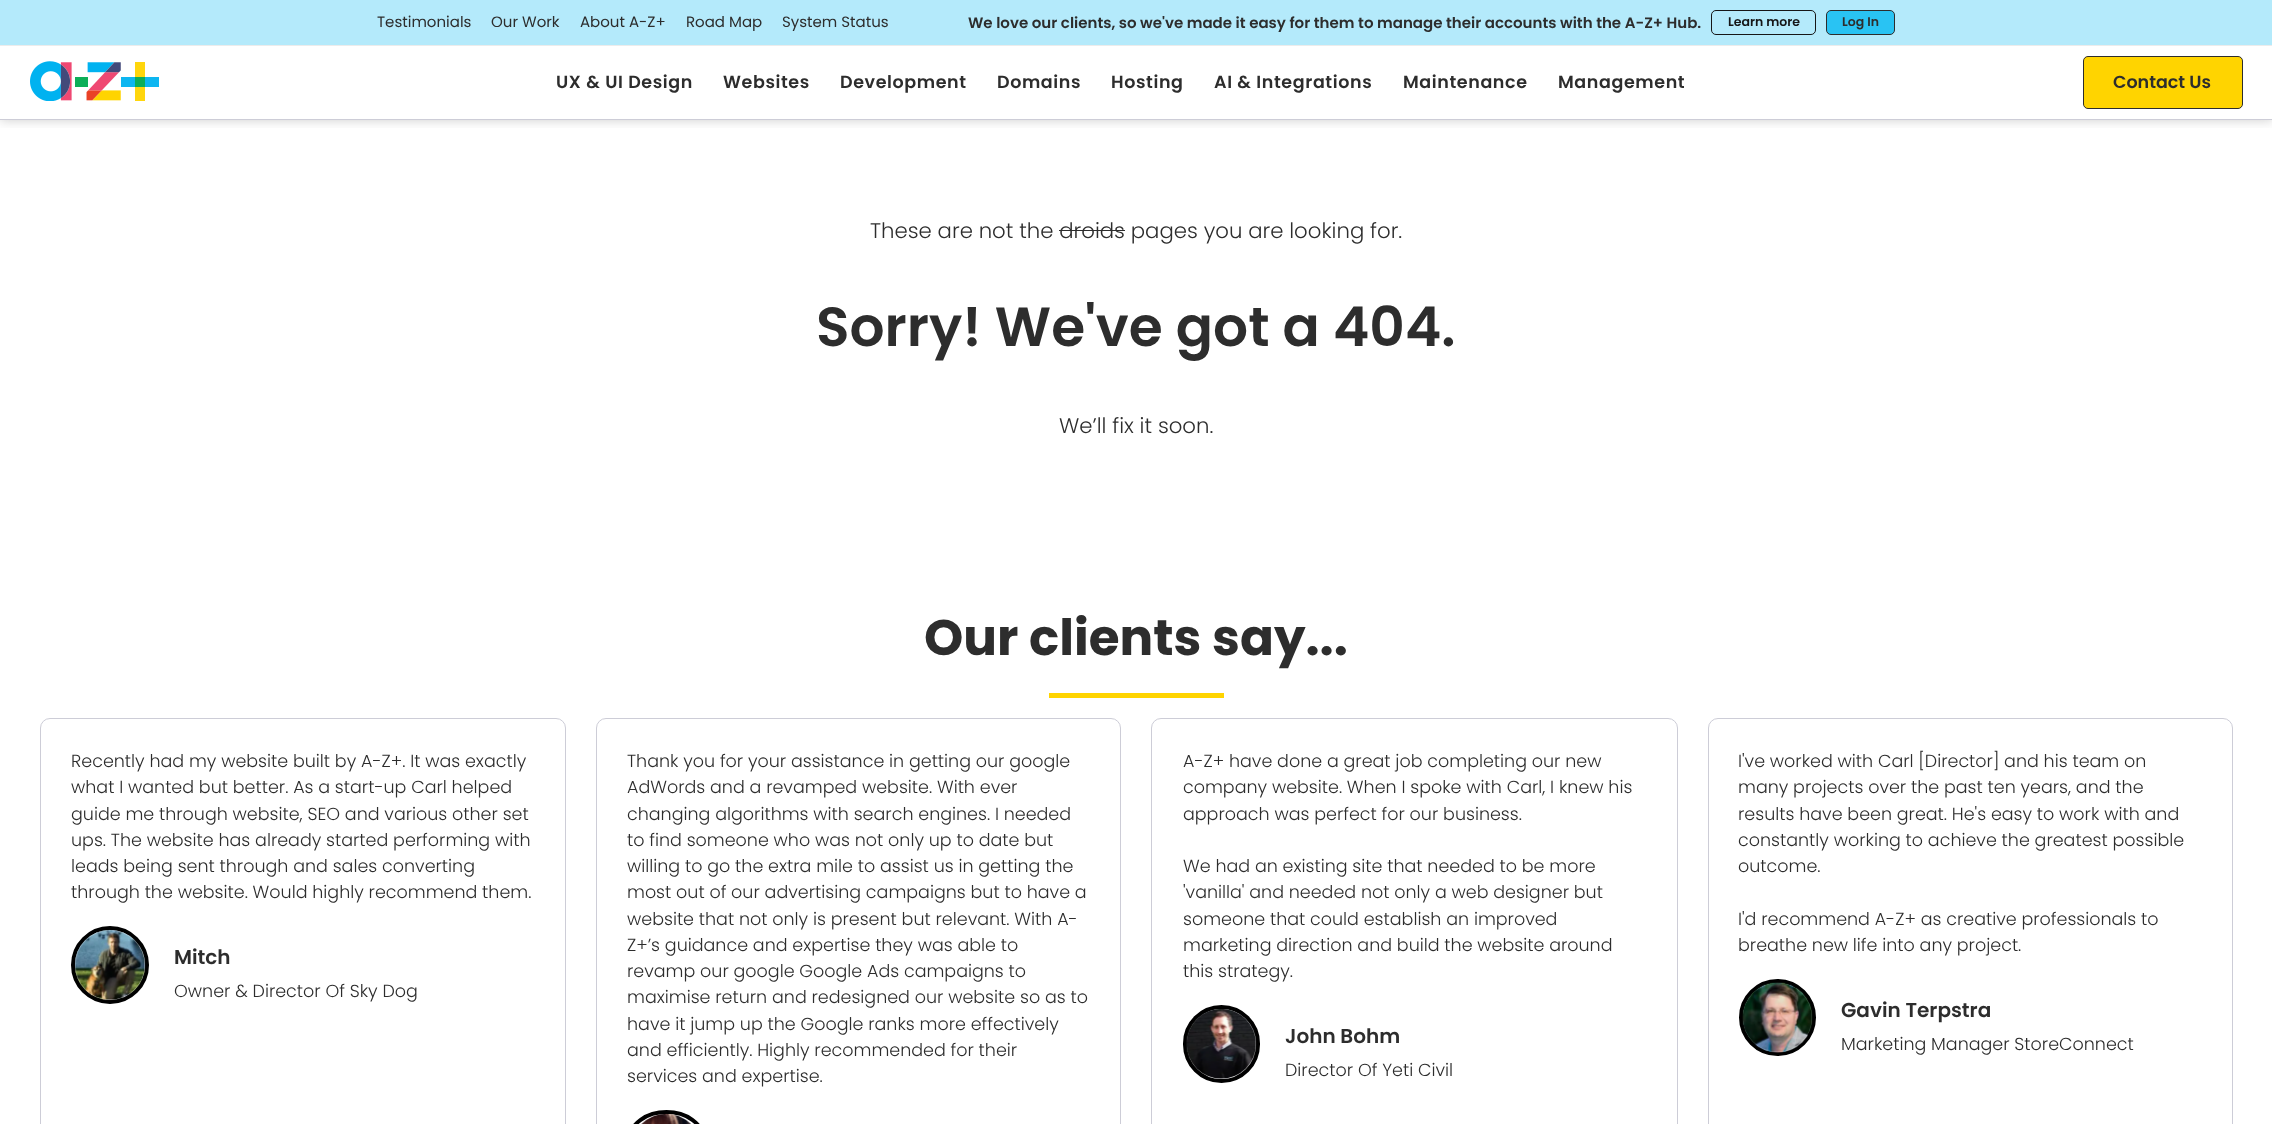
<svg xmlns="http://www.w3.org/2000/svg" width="2272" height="1124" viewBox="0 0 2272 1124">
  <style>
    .t1 { font: 15px Poppins; fill: #2d2d2d; }
    .t2 { font: 600 15px Poppins; fill: #2d2d2d; }
    .t3 { font: 600 12.5px Poppins; fill: #161617; }
    .t4 { font: 600 12.5px Poppins; fill: #2d2d2d; }
    .t5 { font: 600 17.5px Poppins; letter-spacing: 0.6px; fill: #2d2d2d; }
    .t6 { font: 600 17.5px Poppins; fill: #2d2d2d; }
    .t7 { font: 300 21.25px Poppins; fill: #2d2d2d; }
    .t8 { font: 600 55px Poppins; fill: #2d2d2d; }
    .t9 { font: bold 50px Poppins; fill: #2d2d2d; }
    .t10 { font: 300 17.5px Poppins; fill: #2d2d2d; }
    .t11 { font: 600 20px Poppins; fill: #2d2d2d; }
  </style>
  <defs>
    <clipPath id="clip1"><rect x="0" y="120" width="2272" height="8"/></clipPath>
  </defs>
  <rect width="100%" height="100%" fill="#fff"/>
  <g clip-path="url(#clip1)">
    <rect x="0" y="0" width="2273" height="120" fill="#00000033" filter="blur(6px)"/>
  </g>
  <rect x="0" y="0" width="2272" height="45" fill="#b4eafb"/>
  <rect x="0" y="45" width="2272" height="1" fill="#ececec"/>
  <text x="377" y="27" class="t1">Testimonials</text>
  <text x="491" y="27" class="t1">Our Work</text>
  <text x="580" y="27" class="t1">About A-Z+</text>
  <text x="686" y="27" class="t1">Road Map</text>
  <text x="782" y="27" class="t1">System Status</text>
  <text x="968" y="28" class="t2">We love our clients, so we've made it easy for them to manage their accounts with the A-Z+ Hub.</text>
  <rect x="1711.5" y="10.5" width="104" height="24" rx="4.5" fill="none" stroke="#161617"/>
  <text x="1728" y="26" class="t3">Learn more</text>
  <rect x="1826.5" y="10.5" width="68" height="24" rx="4.5" fill="#29c3f3" stroke="#2d2d2d"/>
  <text x="1842" y="26" class="t4">Log In</text>
  <rect x="0" y="119" width="2272" height="1" fill="#cdcdd7"/>
  <image x="30" y="61" width="129" height="40" href="images/1.png"/>
  <text x="556" y="88" class="t5">UX &amp; UI Design</text>
  <text x="723" y="88" class="t5">Websites</text>
  <text x="840" y="88" class="t5">Development</text>
  <text x="997" y="88" class="t5">Domains</text>
  <text x="1111" y="88" class="t5">Hosting</text>
  <text x="1214" y="88" class="t5">AI &amp; Integrations</text>
  <text x="1403" y="88" class="t5">Maintenance</text>
  <text x="1558" y="88" class="t5">Management</text>
  <rect x="2083.5" y="56.5" width="159" height="52" rx="4.5" fill="#ffd400" stroke="#2d2d2d"/>
  <text x="2113" y="88" class="t6">Contact Us</text>
  <text x="870" y="238" class="t7">These are not the droids pages you are looking for.</text>
  <rect x="1059" y="230" width="66" height="1" fill="#2d2d2d"/>
  <text x="816" y="346" class="t8">Sorry! We've got a 404.</text>
  <text x="1059" y="433" class="t7">We’ll fix it soon.</text>
  <text x="924" y="655" class="t9">Our clients say...</text>
  <rect x="1049" y="693" width="175" height="5" fill="#ffd400"/>
  <rect x="40.5" y="718.5" width="525" height="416" rx="9.5" fill="none" stroke="#cdcdd7"/>
  <text x="71" y="767" class="t10">Recently had my website built by A-Z+. It was exactly</text>
  <text x="71" y="793" class="t10">what I wanted but better. As a start-up Carl helped</text>
  <text x="71" y="820" class="t10">guide me through website, SEO and various other set</text>
  <text x="71" y="846" class="t10">ups. The website has already started performing with</text>
  <text x="71" y="872" class="t10">leads being sent through and sales converting</text>
  <text x="71" y="898" class="t10">through the website. Would highly recommend them.</text>
  <circle cx="110" cy="965" r="37" fill="none" stroke="#000" stroke-width="4"/>
  <image x="74" y="929" width="72" height="72" href="images/2.png"/>
  <text x="174" y="964" class="t11">Mitch</text>
  <text x="174" y="997" class="t10">Owner &amp; Director Of Sky Dog</text>
  <rect x="596.5" y="718.5" width="524" height="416" rx="9.5" fill="none" stroke="#cdcdd7"/>
  <text x="627" y="767" class="t10">Thank you for your assistance in getting our google</text>
  <text x="627" y="793" class="t10">AdWords and a revamped website. With ever</text>
  <text x="627" y="820" class="t10">changing algorithms with search engines. I needed</text>
  <text x="627" y="846" class="t10">to find someone who was not only up to date but</text>
  <text x="627" y="872" class="t10">willing to go the extra mile to assist us in getting the</text>
  <text x="627" y="898" class="t10">most out of our advertising campaigns but to have a</text>
  <text x="627" y="925" class="t10">website that not only is present but relevant. With A-</text>
  <text x="627" y="951" class="t10">Z+’s guidance and expertise they was able to</text>
  <text x="627" y="977" class="t10">revamp our google Google Ads campaigns to</text>
  <text x="627" y="1003" class="t10">maximise return and redesigned our website so as to</text>
  <text x="627" y="1030" class="t10">have it jump up the Google ranks more effectively</text>
  <text x="627" y="1056" class="t10">and efficiently. Highly recommended for their</text>
  <text x="627" y="1082" class="t10">services and expertise.</text>
  <rect x="630" y="1112" width="73" height="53" rx="36.5" fill="none" stroke="#000" stroke-width="4"/>
  <image x="641" y="1113" width="50" height="11" href="images/3.png"/>
  <rect x="1151.5" y="718.5" width="526" height="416" rx="9.5" fill="none" stroke="#cdcdd7"/>
  <text x="1183" y="767" class="t10">A-Z+ have done a great job completing our new</text>
  <text x="1183" y="793" class="t10">company website. When I spoke with Carl, I knew his</text>
  <text x="1183" y="820" class="t10">approach was perfect for our business.</text>
  <text x="1183" y="872" class="t10">We had an existing site that needed to be more</text>
  <text x="1183" y="898" class="t10">'vanilla' and needed not only a web designer but</text>
  <text x="1183" y="925" class="t10">someone that could establish an improved</text>
  <text x="1183" y="951" class="t10">marketing direction and build the website around</text>
  <text x="1183" y="977" class="t10">this strategy.</text>
  <rect x="1185" y="1007" width="73" height="74" rx="36.5" fill="none" stroke="#000" stroke-width="4"/>
  <image x="1186" y="1009" width="71" height="70" href="images/4.png"/>
  <text x="1285" y="1043" class="t11">John Bohm</text>
  <text x="1285" y="1076" class="t10">Director Of Yeti Civil</text>
  <rect x="1708.5" y="718.5" width="524" height="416" rx="9.5" fill="none" stroke="#cdcdd7"/>
  <text x="1738" y="767" class="t10">I've worked with Carl [Director] and his team on</text>
  <text x="1738" y="793" class="t10">many projects over the past ten years, and the</text>
  <text x="1738" y="820" class="t10">results have been great. He's easy to work with and</text>
  <text x="1738" y="846" class="t10">constantly working to achieve the greatest possible</text>
  <text x="1738" y="872" class="t10">outcome.</text>
  <text x="1738" y="925" class="t10">I'd recommend A-Z+ as creative professionals to</text>
  <text x="1738" y="951" class="t10">breathe new life into any project.</text>
  <circle cx="1777.5" cy="1017.5" r="36.5" fill="none" stroke="#000" stroke-width="4"/>
  <image x="1742" y="982" width="71" height="71" href="images/5.png"/>
  <text x="1841" y="1017" class="t11">Gavin Terpstra</text>
  <text x="1841" y="1050" class="t10">Marketing Manager StoreConnect</text>
</svg>
